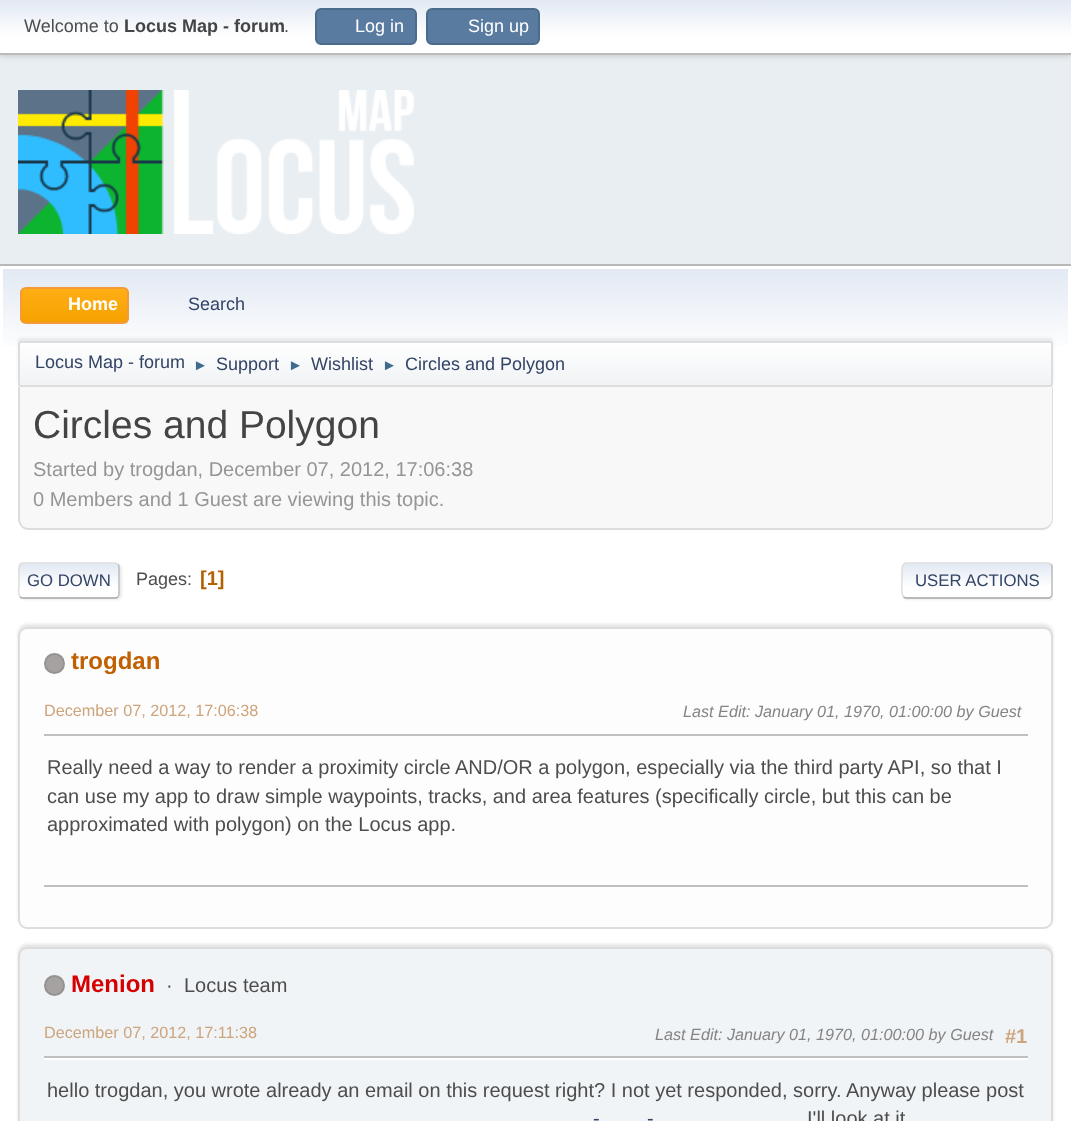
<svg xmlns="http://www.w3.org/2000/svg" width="1071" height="1121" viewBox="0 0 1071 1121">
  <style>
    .t1 { font: 18px Liberation Sans; fill: #4d4d4d; }
    .t2 { font: bold 18px Liberation Sans; fill: #444; }
    .t3 { font: 18px Liberation Sans; fill: #fff; }
    .t4 { font: bold 18px Liberation Sans; fill: #fff; }
    .t5 { font: 18px Liberation Sans; fill: #346; }
    .t6 { font: 15px Liberation Sans; fill: #3f6b8c; }
    .t7 { font: 39px Liberation Sans; fill: #444; }
    .t8 { font: 20px Liberation Sans; fill: #959595; }
    .t9 { font: 16.75px Liberation Sans; fill: #346; }
    .t10 { font: bold 20px Liberation Sans; fill: #b46100; }
    .t11 { font: bold 24px Liberation Sans; fill: #c06002; }
    .t12 { font: 16.2px Liberation Sans; fill: #cda47b; }
    .t13 { font: italic 16.2px Liberation Sans; fill: #848484; }
    .t14 { font: 20px Liberation Sans; fill: #4d4d4d; }
    .t15 { font: bold 24px Liberation Sans; fill: #d60000; }
    .t16 { font: bold 20px Liberation Sans; fill: #cda47b; }
    .t17 { font: 20px Liberation Sans; fill: #346; }
  </style>
  <defs>
    <linearGradient id="g1" gradientUnits="userSpaceOnUse" x1="536" y1="0" x2="536" y2="53"><stop offset="0" stop-color="#e2e9f3"/><stop offset="0.7" stop-color="#fff"/></linearGradient>
    <linearGradient id="g2" gradientUnits="userSpaceOnUse" x1="536" y1="268" x2="536" y2="390"><stop offset="0" stop-color="#e2e9f3"/><stop offset="0.7" stop-color="#fff"/></linearGradient>
    <clipPath id="clip1"><rect x="20" y="287" width="109" height="37" rx="6"/></clipPath>
    <linearGradient id="g3" gradientUnits="userSpaceOnUse" x1="74" y1="288" x2="74" y2="323"><stop offset="0" stop-color="#ffae14"/><stop offset="1" stop-color="#f5a100"/></linearGradient>
    <clipPath id="clip2"><rect x="18" y="341" width="1035" height="46" rx="3"/></clipPath>
    <linearGradient id="g4" gradientUnits="userSpaceOnUse" x1="536" y1="342" x2="536" y2="386"><stop offset="0" stop-color="#fff"/><stop offset="0.95" stop-color="#f1f3f5"/></linearGradient>
    <clipPath id="clip3"><rect x="18" y="563" width="102" height="36" rx="5"/></clipPath>
    <linearGradient id="g5" gradientUnits="userSpaceOnUse" x1="69" y1="564" x2="69" y2="597"><stop offset="0" stop-color="#e2e9f3"/><stop offset="0.7" stop-color="#fff"/></linearGradient>
    <linearGradient id="g6" gradientUnits="userSpaceOnUse" x1="69" y1="597" x2="69" y2="630"><stop offset="0" stop-color="#e2e9f3"/><stop offset="0.7" stop-color="#fff"/></linearGradient>
    <clipPath id="clip4"><rect x="18" y="552" width="1035" height="57"/></clipPath>
    <clipPath id="clip5"><rect x="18" y="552" width="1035" height="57"/></clipPath>
    <clipPath id="clip6"><rect x="902" y="563" width="151" height="36" rx="5"/></clipPath>
    <linearGradient id="g7" gradientUnits="userSpaceOnUse" x1="977" y1="564" x2="977" y2="597"><stop offset="0" stop-color="#e2e9f3"/><stop offset="0.7" stop-color="#fff"/></linearGradient>
    <linearGradient id="g8" gradientUnits="userSpaceOnUse" x1="977" y1="597" x2="977" y2="630"><stop offset="0" stop-color="#e2e9f3"/><stop offset="0.7" stop-color="#fff"/></linearGradient>
  </defs>
  <rect width="100%" height="100%" fill="#e9eef2"/>
  <rect x="0" y="2" width="1071" height="54" fill="#00000029" filter="blur(3px)"/>
  <rect x="0" y="0" width="1071" height="53" fill="url(#g1)"/>
  <rect x="0" y="53" width="1071" height="2" fill="#bbb"/>
  <text x="24" y="32" class="t1">Welcome to</text>
  <text x="124" y="32" class="t2">Locus Map - forum</text>
  <text x="284" y="32" class="t1">.</text>
  <rect x="316" y="9" width="100" height="35" rx="5" fill="#597b9f" stroke="#4a6b8c" stroke-width="2"/>
  <text x="355" y="32" class="t3">Log in</text>
  <rect x="427" y="9" width="112" height="35" rx="5" fill="#597b9f" stroke="#4a6b8c" stroke-width="2"/>
  <text x="468" y="32" class="t3">Sign up</text>
  <image x="18" y="90" width="396" height="144" href="images/1.png"/>
  <rect x="0" y="266" width="1071" height="855" fill="#fff"/>
  <rect x="0" y="264" width="1071" height="2" fill="#b8b8b8"/>
  <rect x="3" y="269" width="1065" height="77" fill="url(#g2)"/>
  <g clip-path="url(#clip1)">
    <rect x="20" y="288" width="109" height="35" fill="url(#g3)"/>
  </g>
  <rect x="21" y="288" width="107" height="35" rx="5" fill="none" stroke="#f49a3a" stroke-width="2"/>
  <text x="68" y="310" class="t4">Home</text>
  <text x="188" y="310" class="t5">Search</text>
  <rect x="18" y="338" width="1035" height="46" rx="3" fill="#00000014" filter="blur(1.5px)"/>
  <g clip-path="url(#clip2)">
    <rect x="18" y="342" width="1035" height="44" fill="url(#g4)"/>
  </g>
  <rect x="19" y="342" width="1033" height="44" rx="2" fill="none" stroke="#ddd" stroke-width="2"/>
  <text x="35" y="368" class="t5">Locus Map - forum</text>
  <text x="193" y="370" class="t6">►</text>
  <text x="216" y="370" class="t5">Support</text>
  <text x="288" y="370" class="t6">►</text>
  <text x="311" y="370" class="t5">Wishlist</text>
  <text x="382" y="370" class="t6">►</text>
  <text x="405" y="370" class="t5">Circles and Polygon</text>
  <path d="M18 387H1053V519C1053 525 1048 530 1042 530H29C23 530 18 525 18 519Z" fill="#f8f8f8"/>
  <path d="M18 387H1053V519C1053 525 1048 530 1042 530H28C23 530 18 525 18 519ZM20 387H1052V519C1052 524 1047 528 1042 528H28C24 528 20 524 20 519Z" fill="#ddd" fill-rule="evenodd"/>
  <text x="33" y="438" class="t7">Circles and Polygon</text>
  <text x="33" y="476" class="t8">Started by trogdan, December 07, 2012, 17:06:38</text>
  <text x="33" y="506" class="t8">0 Members and 1 Guest are viewing this topic.</text>
  <rect x="20" y="564" width="102" height="36" rx="5" fill="#dddddd91" filter="blur(1px)"/>
  <g clip-path="url(#clip3)">
    <rect x="18" y="564" width="102" height="33" fill="url(#g5)"/>
    <rect x="18" y="597" width="102" height="2" fill="url(#g6)"/>
  </g>
  <path d="M118 564.5C119 565 119 566 119 567V594C119 595 119 596 118 596.5" fill="none" stroke="#bbb" stroke-width="1.5"/>
  <path d="M118 596.5C117.5 597.5 116.5 598 115.5 598H22.5C21.5 598 20.5 597.5 20 596.5" fill="none" stroke="#aaa" stroke-width="1.5"/>
  <g clip-path="url(#clip4)">
    <path d="M20 596.5C17.5 594 19 588 19 585V571.5C19 568.5 18 563.5 22.5 563H115.5L118 564.5" fill="none" stroke="#ddd" stroke-width="1.5"/>
  </g>
  <text x="27" y="586" class="t9">GO DOWN</text>
  <text x="136" y="585" class="t1">Pages:</text>
  <text x="200" y="585" class="t10">[1]</text>
  <g clip-path="url(#clip5)">
    <rect x="903" y="564" width="152" height="36" rx="5" fill="#dddddd91" filter="blur(1px)"/>
  </g>
  <g clip-path="url(#clip6)">
    <rect x="902" y="564" width="151" height="33" fill="url(#g7)"/>
    <rect x="902" y="597" width="151" height="2" fill="url(#g8)"/>
  </g>
  <path d="M1051 564.5C1052 565 1052 566 1052 567V594C1052 595 1052 596 1051 596.5" fill="none" stroke="#bbb" stroke-width="1.5"/>
  <path d="M1051 596.5C1050.5 597.5 1049.5 598 1048.5 598H906C905 598 904 597.5 903.5 596.5" fill="none" stroke="#aaa" stroke-width="1.5"/>
  <path d="M903.5 596.5C901 594.5 902 583.5 902 580.5V571.5C902 568.5 901.5 563.5 906 563H1048.5L1051 564.5" fill="none" stroke="#ddd" stroke-width="1.5"/>
  <text x="915" y="586" class="t9">USER ACTIONS</text>
  <rect x="18" y="624" width="1035" height="302" rx="9" fill="#0000001a" filter="blur(1.5px)"/>
  <rect x="19" y="628" width="1033" height="300" rx="8" fill="#fdfdfd" stroke="#ddd" stroke-width="2"/>
  <circle cx="54.5" cy="663.5" r="9.5" fill="#a7a2a2" stroke="#969292" stroke-width="2"/>
  <text x="71" y="669" class="t11">trogdan</text>
  <text x="44" y="716" class="t12">December 07, 2012, 17:06:38</text>
  <text x="683" y="717" class="t13">Last Edit: January 01, 1970, 01:00:00 by Guest</text>
  <rect x="44" y="734" width="984" height="2" fill="#bfbfbf"/>
  <text x="47" y="774" class="t14">Really need a way to render a proximity circle AND/OR a polygon, especially via the third party API, so that I</text>
  <text x="47" y="803" class="t14">can use my app to draw simple waypoints, tracks, and area features (specifically circle, but this can be</text>
  <text x="47" y="831" class="t14">approximated with polygon) on the Locus app.</text>
  <rect x="44" y="885" width="984" height="2" fill="#bfbfbf"/>
  <rect x="18" y="944" width="1035" height="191" rx="9" fill="#0000001a" filter="blur(1.5px)"/>
  <rect x="19" y="948" width="1033" height="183" rx="8" fill="#f0f4f7" stroke="#ddd" stroke-width="2"/>
  <circle cx="54.5" cy="985.5" r="9.5" fill="#a7a2a2" stroke="#969292" stroke-width="2"/>
  <text x="71" y="992" class="t15">Menion</text>
  <text x="166" y="992" class="t14">·</text>
  <text x="184" y="992" class="t14">Locus team</text>
  <text x="44" y="1038" class="t12">December 07, 2012, 17:11:38</text>
  <text x="655" y="1040" class="t13">Last Edit: January 01, 1970, 01:00:00 by Guest</text>
  <text x="1005" y="1043" class="t16">#1</text>
  <rect x="44" y="1058" width="984" height="2" fill="#fff"/>
  <rect x="44" y="1056" width="984" height="2" fill="#bfbfbf"/>
  <text x="47" y="1097" class="t14">hello trogdan, you wrote already an email on this request right? I not yet responded, sorry. Anyway please post</text>
  <text x="593" y="1125" class="t17">-</text>
  <text x="647" y="1125" class="t17">-</text>
  <text x="807" y="1125" class="t14">I'll look at it</text>
</svg>
